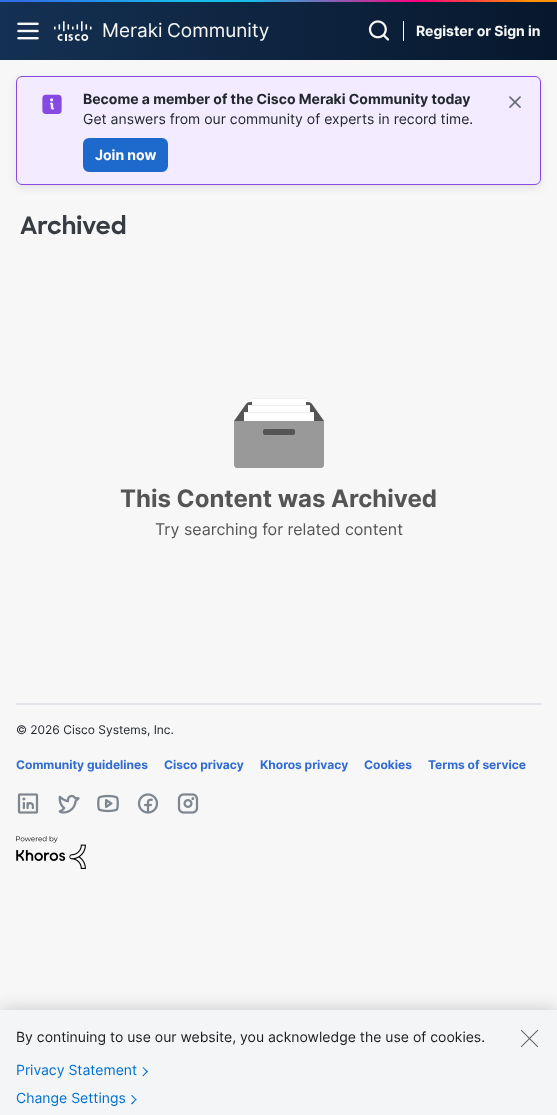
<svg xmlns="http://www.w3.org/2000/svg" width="557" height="1115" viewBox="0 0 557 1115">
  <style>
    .t1 { font: 19px Inter; fill: #f7f7f7; }
    .t2 { font: bold 14px Inter; fill: #f7f7f7; }
    .t3 { font: bold 14px Inter; fill: #23282e; }
    .t4 { font: 14px Inter; fill: #23282e; }
    .t5 { font: bold 14px Inter; fill: #fff; }
    .t6 { font: bold 24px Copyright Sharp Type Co; fill: #373c42; }
    .t7 { font: bold 24px Inter; fill: #555; }
    .t8 { font: 16px Inter; fill: #555; }
    .t9 { font: 12px Inter; fill: #23282e; }
    .t10 { font: bold 12px Inter; fill: #326cd1; }
    .t11 { font: 14px Inter; fill: #1b1c1d; }
    .t12 { font: 14px Inter; fill: #0070d2; }
  </style>
  <defs>
    <linearGradient id="g1" gradientUnits="userSpaceOnUse" x1="0" y1="30" x2="557" y2="30"><stop offset="0.01" stop-color="#143052"/><stop offset="0.99" stop-color="#07182d"/></linearGradient>
    <linearGradient id="g2" gradientUnits="userSpaceOnUse" x1="0" y1="1" x2="557" y2="1"><stop offset="0.05" stop-color="#3070e7"/><stop offset="0.33" stop-color="#16bdeb"/><stop offset="0.45" stop-color="#16bdeb"/><stop offset="0.75" stop-color="#ff007f"/><stop offset="0.95" stop-color="#ff9000"/></linearGradient>
  </defs>
  <rect width="100%" height="100%" fill="#f7f7f7"/>
  <rect x="0" y="2" width="557" height="58" fill="url(#g1)"/>
  <rect x="0" y="0" width="557" height="2" fill="url(#g2)"/>
  <image x="17" y="22" width="22" height="18" href="images/1.png"/>
  <image x="54" y="21" width="38" height="20" href="images/2.png"/>
  <text x="102" y="37" class="t1">Meraki</text>
  <text x="167" y="37" class="t1">Community</text>
  <image x="368" y="20" width="22" height="21" href="images/3.png"/>
  <rect x="403" y="21" width="1" height="20" fill="#fff"/>
  <text x="416" y="36" class="t2">Register or Sign in</text>
  <rect x="16" y="79" width="525" height="109" rx="6" fill="#00000014" filter="blur(4px)"/>
  <rect x="16.5" y="76.5" width="524" height="108" rx="5.5" fill="#f3ebff" stroke="#864ae0"/>
  <image x="42" y="94" width="20" height="20" href="images/4.png"/>
  <text x="83" y="104" class="t3">Become a member of the Cisco Meraki Community today</text>
  <text x="83" y="124" class="t4">Get answers from our community of experts in record time.</text>
  <rect x="84" y="139" width="83" height="32" rx="5" fill="#1d69cc" stroke="#1d69cc" stroke-width="2"/>
  <text x="95" y="160" class="t5">Join now</text>
  <image x="509" y="96" width="12" height="12" href="images/5.png"/>
  <text x="20" y="234" class="t6">Archived</text>
  <image x="234" y="398" width="90" height="70" href="images/6.png"/>
  <text x="120" y="507" class="t7">This Content was Archived</text>
  <text x="155" y="535" class="t8">Try searching for related content</text>
  <rect x="16" y="703" width="525" height="2" fill="#e1e4e8"/>
  <text x="16" y="734" class="t9">© 2026 Cisco Systems, Inc.</text>
  <text x="16" y="769" class="t10">Community guidelines</text>
  <text x="164" y="769" class="t10">Cisco privacy</text>
  <text x="260" y="769" class="t10">Khoros privacy</text>
  <text x="364" y="769" class="t10">Cookies</text>
  <text x="428" y="769" class="t10">Terms of service</text>
  <image x="17" y="793" width="22" height="21" href="images/7.png"/>
  <image x="58" y="794" width="22" height="20" href="images/8.png"/>
  <image x="97" y="794" width="22" height="19" href="images/9.png"/>
  <image x="137" y="793" width="22" height="21" href="images/10.png"/>
  <image x="177" y="793" width="22" height="21" href="images/11.png"/>
  <image x="16" y="836" width="70" height="33" href="images/12.png"/>
  <rect x="0" y="1010" width="557" height="105" fill="#00000033" filter="blur(9px)"/>
  <rect x="0" y="1010" width="557" height="105" fill="#f4f5f6"/>
  <text x="16" y="1042" class="t11">By continuing to use our website, you acknowledge the use of cookies.</text>
  <text x="16" y="1075" class="t12">Privacy Statement</text>
  <path d="M143 1067L148 1071.5L147 1072.5L142.5 1067.5Z" fill="#0070d2"/>
  <path d="M147 1071L148 1071.5L143 1076.5L142.5 1075.5ZM132 1095L136.5 1099.5L136 1100.5L131 1095.5Z" fill="#0070d2"/>
  <text x="16" y="1103" class="t12">Change Settings</text>
  <path d="M136 1099L136.5 1099.5L132 1104.5L131 1103.5Z" fill="#0070d2"/>
  <image x="520" y="1029" width="19" height="19" href="images/13.png"/>
</svg>
